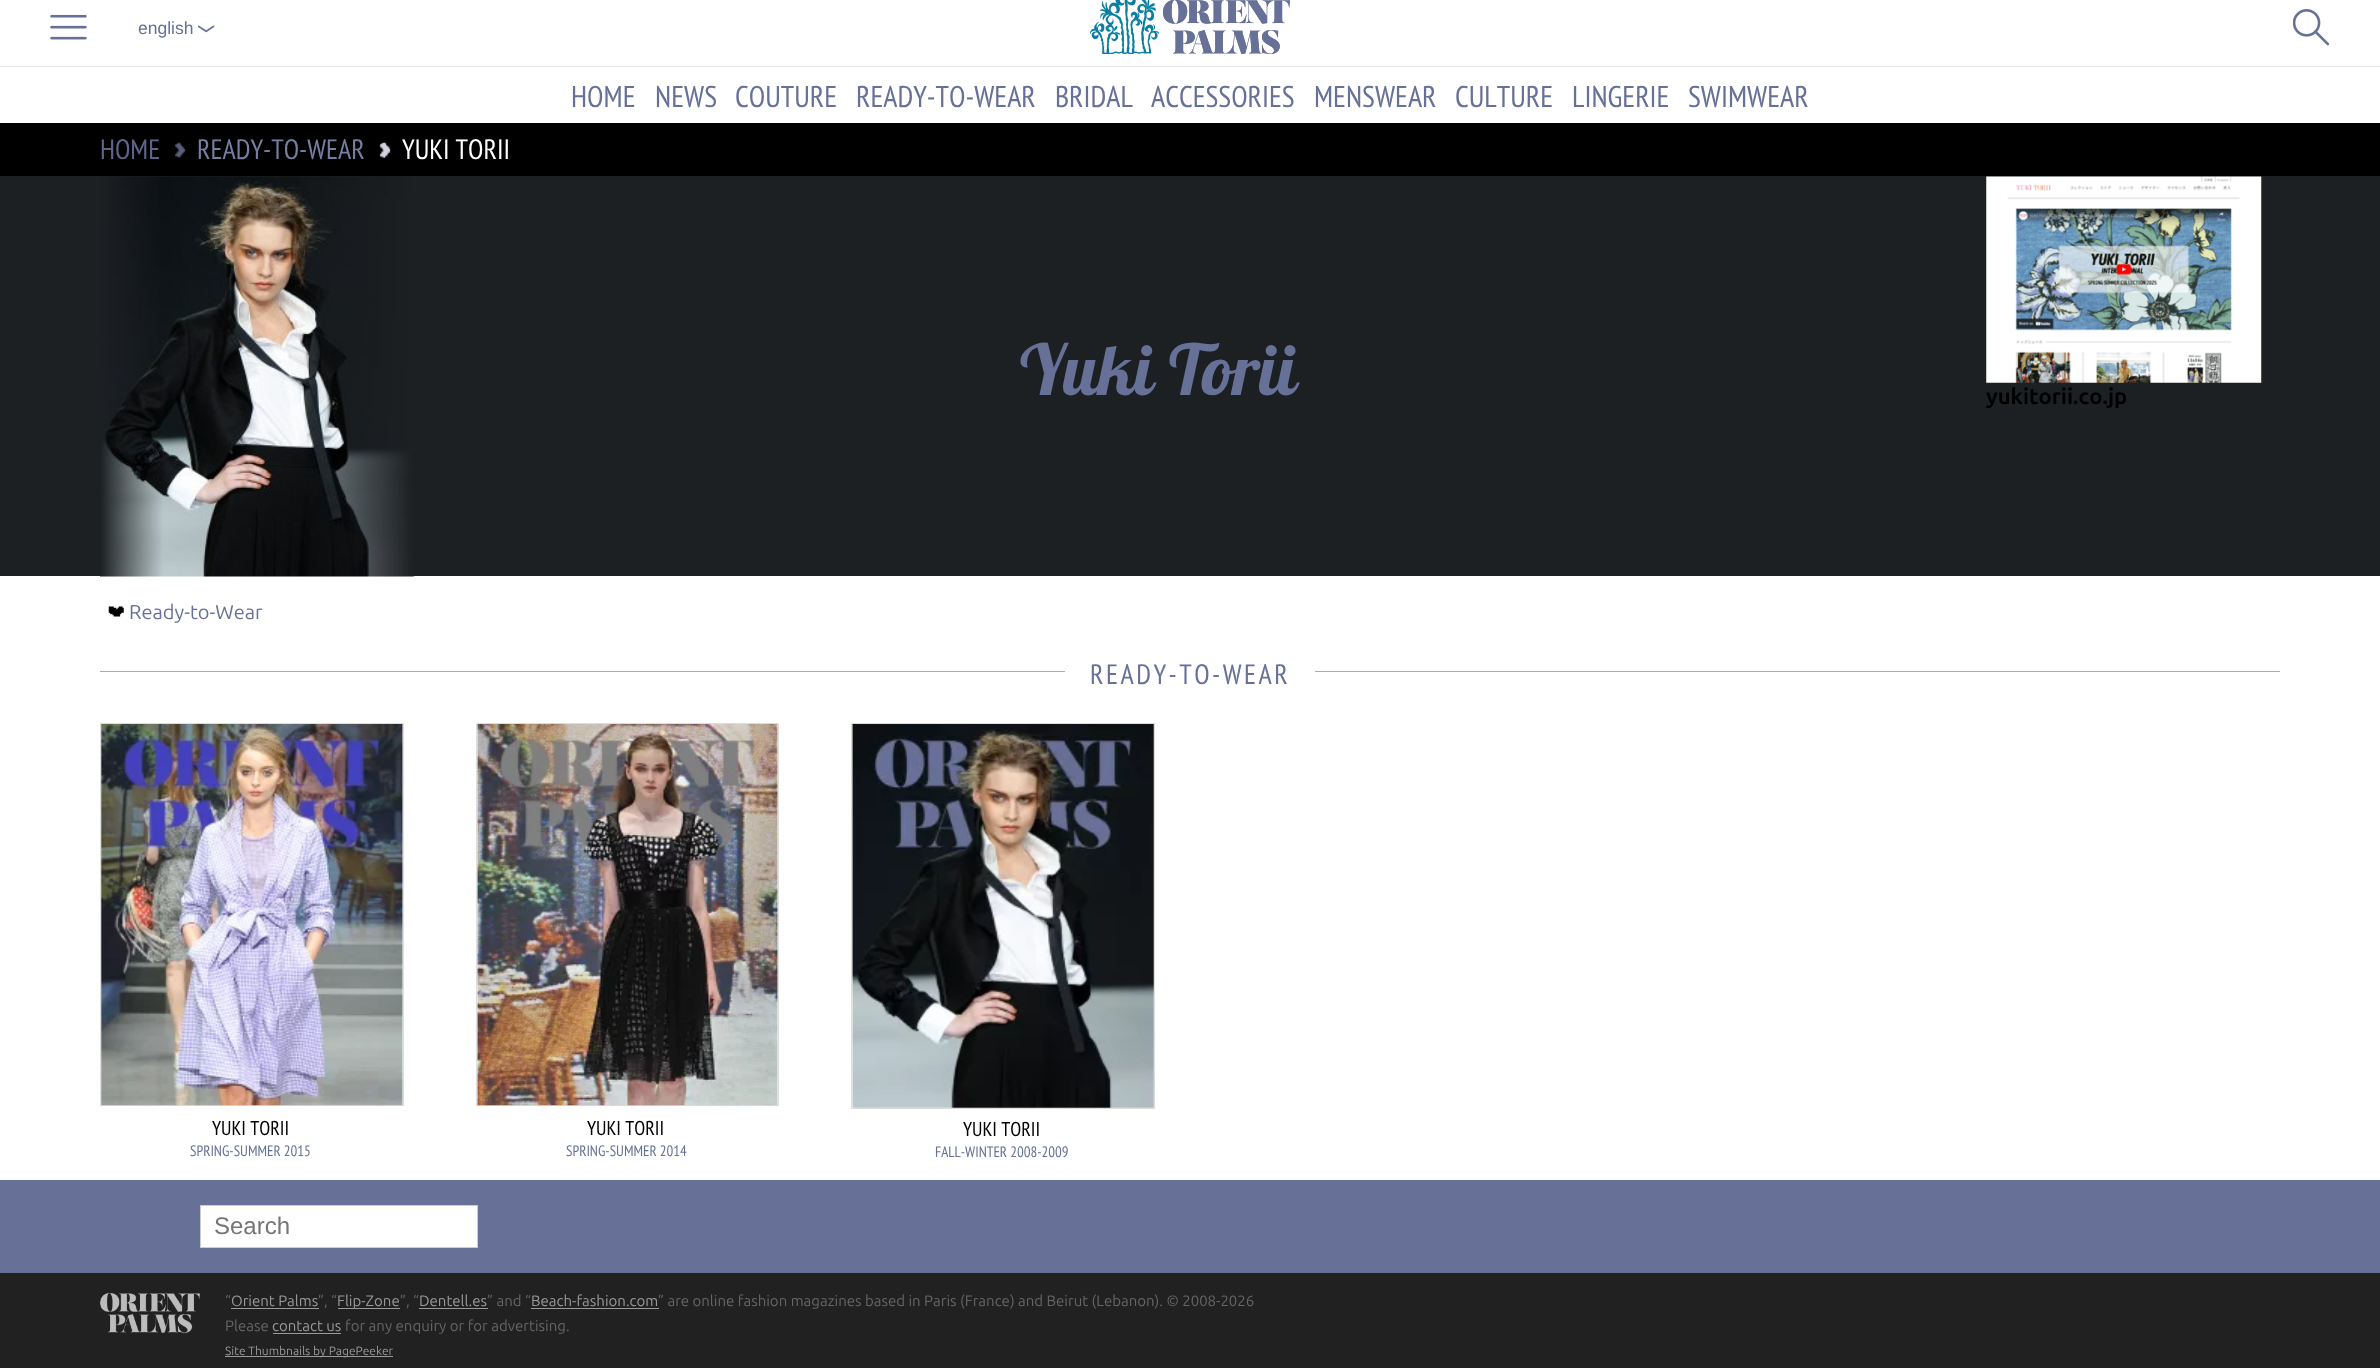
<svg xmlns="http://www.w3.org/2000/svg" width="2380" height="1368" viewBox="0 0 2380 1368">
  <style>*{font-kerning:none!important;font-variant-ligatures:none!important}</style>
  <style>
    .t1 { font: 17.5px Liberation Sans; fill: #677197; }
    .t2 { font: 30px PT Sans Narrow; fill: #677197; }
    .t3 { font: 28px PT Sans Narrow; fill: #5d6688; }
    .t4 { font: 28px PT Sans Narrow; fill: #767fa1; }
    .t5 { font: 28px PT Sans Narrow; fill: #fff; }
    .t6 { font: 70px 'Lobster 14'; fill: #677197; }
    .t7 { font: bold 22px Ubuntu; fill: #000; }
    .t8 { font: 20px Ubuntu; fill: #677197; }
    .t9 { font: 28px PT Sans Narrow; letter-spacing: 2.5px; fill: #677197; }
    .t10 { font: 20px PT Sans Narrow; fill: #000; }
    .t11 { font: 15px PT Sans Narrow; fill: #677197; }
    .t12 { font: 24px Liberation Sans; fill: #757575; }
    .t13 { font: 15px Ubuntu; fill: #666; }
    .t14 { font: 15px Ubuntu; fill: #999; }
    .t15 { font: 12px Ubuntu; fill: #999; }
  </style>
  <rect width="100%" height="100%" fill="#fff"/>
  <rect x="0" y="66" width="2380" height="1" fill="#e4e4e4"/>
  <image x="50" y="14" width="37" height="26" href="images/1.png"/>
  <text x="138" y="34" class="t1">english</text>
  <image x="198" y="25" width="17" height="8" href="images/2.png"/>
  <image x="1090" y="0" width="200" height="54" href="images/3.png"/>
  <image x="2293" y="9" width="37" height="37" href="images/4.png"/>
  <text x="571" y="107" class="t2">HOME</text>
  <text x="655" y="107" class="t2">NEWS</text>
  <text x="735" y="107" class="t2">COUTURE</text>
  <text x="856" y="107" class="t2">READY-TO-WEAR</text>
  <text x="1055" y="107" class="t2">BRIDAL</text>
  <text x="1151" y="107" class="t2">ACCESSORIES</text>
  <text x="1314" y="107" class="t2">MENSWEAR</text>
  <text x="1455" y="107" class="t2">CULTURE</text>
  <text x="1572" y="107" class="t2">LINGERIE</text>
  <text x="1688" y="107" class="t2">SWIMWEAR</text>
  <rect x="0" y="123" width="2380" height="53" fill="#000"/>
  <text x="100" y="159" class="t3">HOME</text>
  <image x="174" y="142" width="12" height="16" href="images/5.png"/>
  <text x="197" y="159" class="t4">READY-TO-WEAR</text>
  <image x="379" y="142" width="12" height="16" href="images/6.png"/>
  <text x="402" y="159" class="t5">YUKI TORII</text>
  <rect x="0" y="176" width="2380" height="400" fill="#1c2023"/>
  <image x="100" y="176" width="314" height="401" href="images/7.png"/>
  <text x="1020" y="395" class="t6">Yuki Torii</text>
  <image x="1986" y="176" width="276" height="207" href="images/8.png"/>
  <text x="1986" y="404" class="t7">yukitorii.co.jp</text>
  <image x="108" y="606" width="16" height="11" href="images/9.png"/>
  <text x="129" y="619" class="t8">Ready-to-Wear</text>
  <rect x="100" y="671" width="2180" height="1" fill="#a4aac0"/>
  <rect x="1065" y="671" width="250" height="1" fill="#fff"/>
  <text x="1090" y="684" class="t9">READY-TO-WEAR</text>
  <rect x="100.5" y="723.5" width="303" height="382" fill="none" stroke="#ddd"/>
  <image x="101" y="724" width="302" height="382" href="images/10.png"/>
  <text x="212" y="1135" class="t10">YUKI TORII</text>
  <text x="190" y="1156" class="t11">SPRING-SUMMER 2015</text>
  <rect x="476.5" y="723.5" width="302" height="382" fill="none" stroke="#ddd"/>
  <image x="477" y="724" width="301" height="382" href="images/11.png"/>
  <text x="587" y="1135" class="t10">YUKI TORII</text>
  <text x="566" y="1156" class="t11">SPRING-SUMMER 2014</text>
  <rect x="851.5" y="723.5" width="303" height="385" fill="none" stroke="#ddd"/>
  <image x="852" y="724" width="302" height="384" href="images/12.png"/>
  <text x="963" y="1136" class="t10">YUKI TORII</text>
  <text x="935" y="1157" class="t11">FALL-WINTER 2008-2009</text>
  <rect x="0" y="1180" width="2380" height="93" fill="#677197"/>
  <rect x="200.5" y="1205.5" width="277" height="42" fill="#fff" stroke="#ccc"/>
  <text x="214" y="1234" class="t12">Search</text>
  <rect x="0" y="1273" width="2380" height="95" fill="#212121"/>
  <image x="100" y="1292" width="100" height="42" href="images/13.png"/>
  <text x="225" y="1306" class="t13">“</text>
  <text x="231" y="1306" class="t14">Orient Palms</text>
  <rect x="231" y="1308" width="88" height="1" fill="#999"/>
  <text x="318" y="1306" class="t13">”, “</text>
  <rect x="338" y="1308" width="62" height="1" fill="#999"/>
  <text x="337" y="1306" class="t14">Flip-Zone</text>
  <text x="400" y="1306" class="t13">”, “</text>
  <text x="419" y="1306" class="t14">Dentell.es</text>
  <rect x="419" y="1308" width="69" height="1" fill="#999"/>
  <text x="487" y="1306" class="t13">” and “</text>
  <text x="531" y="1306" class="t14">Beach-fashion.com</text>
  <rect x="531" y="1308" width="128" height="1" fill="#999"/>
  <text x="658" y="1306" class="t13">” are online fashion magazines based in Paris (France) and Beirut (Lebanon). © 2008-2026</text>
  <text x="225" y="1331" class="t13">Please</text>
  <text x="272" y="1331" class="t14">contact us</text>
  <rect x="273" y="1333" width="68" height="1" fill="#999"/>
  <text x="345" y="1331" class="t13">for any enquiry or for advertising.</text>
  <rect x="225" y="1356" width="168" height="1" fill="#999"/>
  <text x="225" y="1355" class="t15">Site Thumbnails by PagePeeker</text>
</svg>
